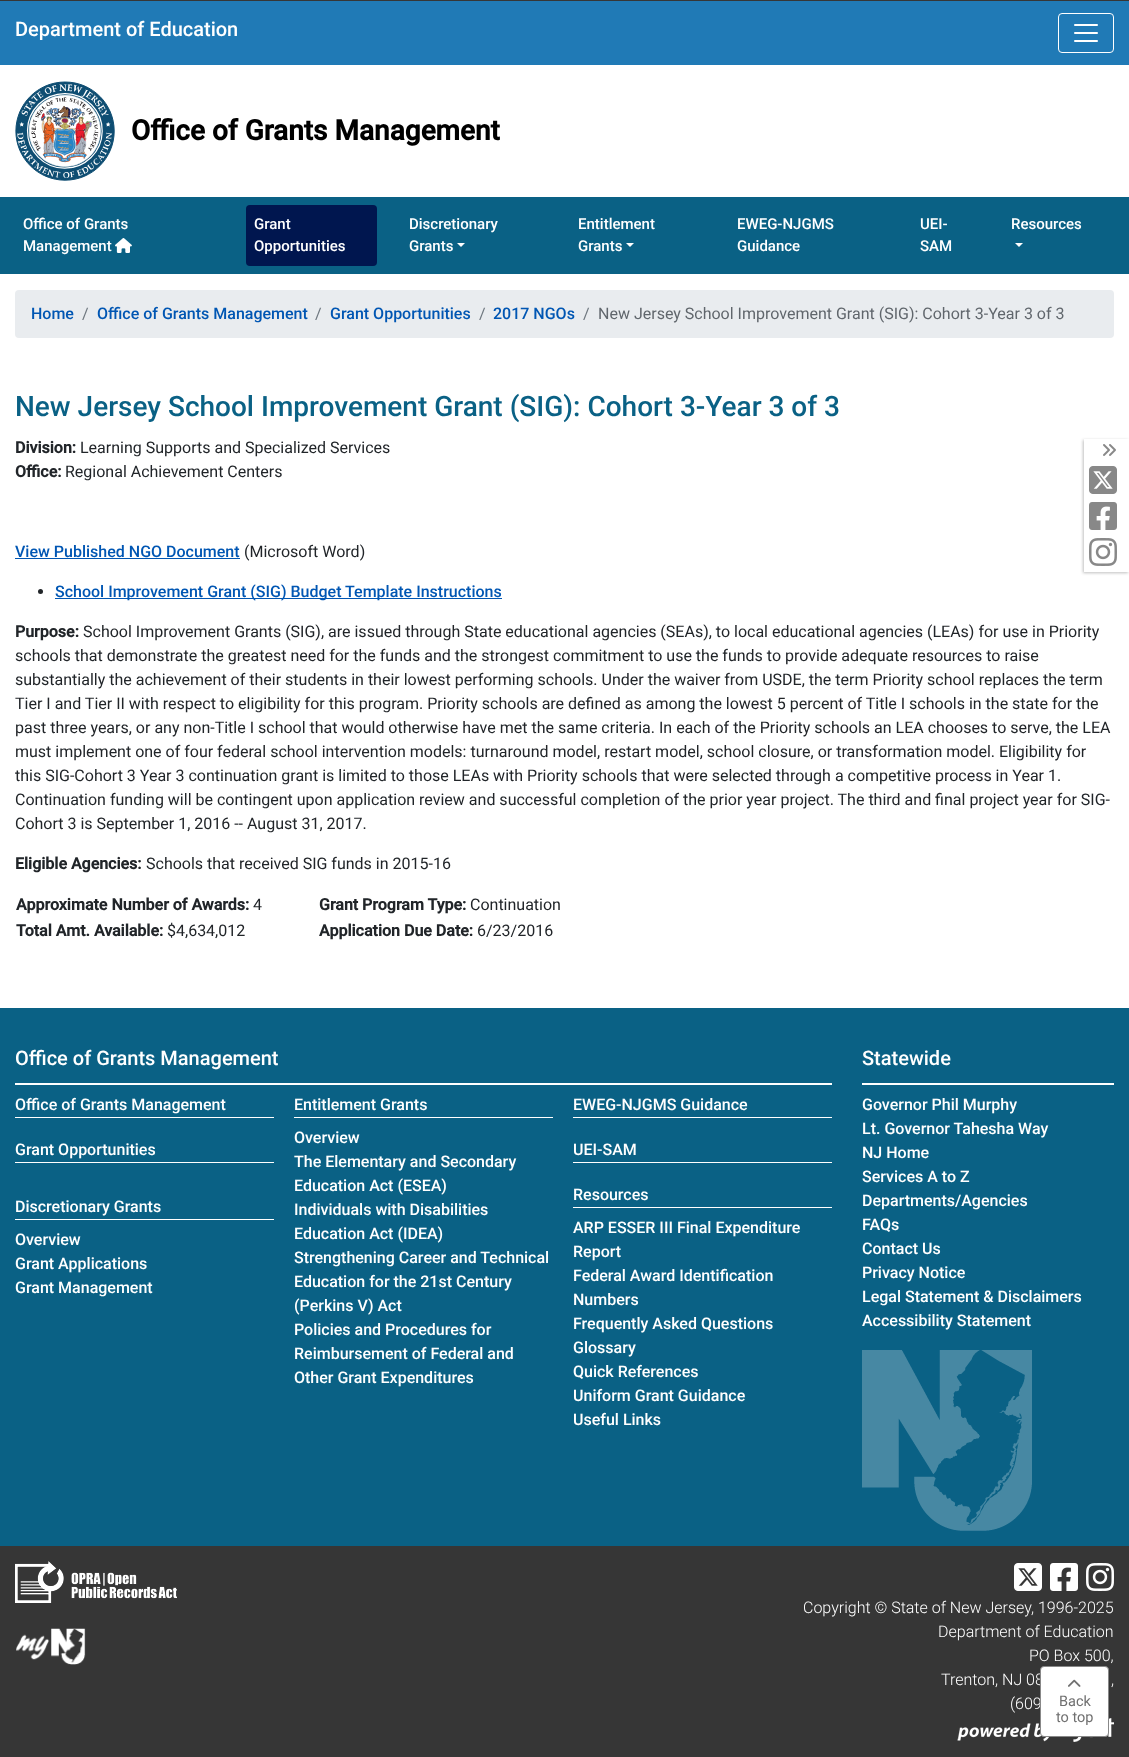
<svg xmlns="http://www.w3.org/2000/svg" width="1129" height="1757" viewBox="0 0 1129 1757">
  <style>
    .t1 { font: 500 20px Roboto; fill: #fff; }
    .t2 { font: bold 28px Roboto; fill: #000; }
    .t3 { font: 500 15px Roboto; fill: #fff; }
    .t4 { font: 500 16px Roboto; fill: #0056b3; }
    .t5 { font: 16px Roboto; fill: #6c757d; }
    .t6 { font: 16px Roboto; fill: #60666c; }
    .t7 { font: 500 28px Roboto; fill: #0a6185; }
    .t8 { font: bold 16px Roboto; fill: #212529; }
    .t9 { font: 16px Roboto; fill: #212529; }
    .t10 { font: 500 16px Roboto; fill: #fff; }
    .t11 { font: 300 16px Roboto; fill: #fff; }
    .t12 { font: 14.5px Roboto; fill: #707070; }
  </style>
  <defs>
    <clipPath id="clip1"><path d="M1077 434H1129V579H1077ZM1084 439H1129V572H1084Z" clip-rule="evenodd"/></clipPath>
  </defs>
  <rect width="100%" height="100%" fill="#fff"/>
  <rect x="0" y="0" width="1129" height="1" fill="#363636"/>
  <rect x="0" y="1" width="1129" height="64" fill="#207ab6"/>
  <text x="15" y="36" class="t1">Department of Education</text>
  <rect x="1058.5" y="13.5" width="55" height="39" rx="3.5" fill="none" stroke="#fff"/>
  <image x="1074" y="24" width="24" height="18" href="images/1.png"/>
  <image x="15" y="81" width="100" height="100" href="images/2.png"/>
  <text x="131" y="140" class="t2">Office of Grants Management</text>
  <rect x="0" y="197" width="1129" height="77" fill="#0a6185"/>
  <text x="23" y="229" class="t3">Office of Grants</text>
  <text x="23" y="251" class="t3">Management</text>
  <image x="115" y="238" width="17" height="15" href="images/3.png"/>
  <rect x="246" y="205" width="131" height="61" rx="4" fill="#00164f"/>
  <text x="254" y="229" class="t3">Grant</text>
  <text x="254" y="251" class="t3">Opportunities</text>
  <text x="409" y="229" class="t3">Discretionary</text>
  <text x="409" y="251" class="t3">Grants</text>
  <path d="M457 243H465L461 247Z" fill="#fff"/>
  <text x="578" y="229" class="t3">Entitlement</text>
  <text x="578" y="251" class="t3">Grants</text>
  <path d="M626 243H634L630 247Z" fill="#fff"/>
  <text x="737" y="229" class="t3">EWEG-NJGMS</text>
  <text x="737" y="251" class="t3">Guidance</text>
  <text x="920" y="229" class="t3">UEI-</text>
  <text x="920" y="251" class="t3">SAM</text>
  <text x="1011" y="229" class="t3">Resources</text>
  <path d="M1015 243H1023L1019 247Z" fill="#fff"/>
  <rect x="15" y="290" width="1099" height="48" rx="4" fill="#e9ecef"/>
  <text x="31" y="319" class="t4">Home</text>
  <text x="82" y="319" class="t5">/</text>
  <text x="97" y="319" class="t4">Office of Grants Management</text>
  <text x="315" y="319" class="t5">/</text>
  <text x="330" y="319" class="t4">Grant Opportunities</text>
  <text x="479" y="319" class="t5">/</text>
  <text x="493" y="319" class="t4">2017 NGOs</text>
  <text x="583" y="319" class="t5">/</text>
  <text x="598" y="319" class="t6">New Jersey School Improvement Grant (SIG): Cohort 3-Year 3 of 3</text>
  <text x="15" y="416" class="t7">New Jersey School Improvement Grant (SIG): Cohort 3-Year 3 of 3</text>
  <text x="15" y="453" class="t8">Division:</text>
  <text x="80" y="453" class="t9">Learning Supports and Specialized Services</text>
  <text x="15" y="477" class="t8">Office:</text>
  <text x="65" y="477" class="t9">Regional Achievement Centers</text>
  <text x="15" y="557" class="t4">View Published NGO Document</text>
  <rect x="15" y="558" width="225" height="1" fill="#0056b3"/>
  <text x="244" y="557" class="t9">(Microsoft Word)</text>
  <circle cx="40.5" cy="591.5" r="2.5" fill="#212529"/>
  <rect x="55" y="598" width="447" height="1" fill="#0056b3"/>
  <text x="55" y="597" class="t4">School Improvement Grant (SIG) Budget Template Instructions</text>
  <text x="15" y="637" class="t8">Purpose:</text>
  <text x="83" y="637" class="t9">School Improvement Grants (SIG), are issued through State educational agencies (SEAs), to local educational agencies (LEAs) for use in Priority</text>
  <text x="15" y="661" class="t9">schools that demonstrate the greatest need for the funds and the strongest commitment to use the funds to provide adequate resources to raise</text>
  <text x="15" y="685" class="t9">substantially the achievement of their students in their lowest performing schools. Under the waiver from USDE, the term Priority school replaces the term</text>
  <text x="15" y="709" class="t9">Tier I and Tier II with respect to eligibility for this program. Priority schools are defined as among the lowest 5 percent of Title I schools in the state for the</text>
  <text x="15" y="733" class="t9">past three years, or any non-Title I school that would otherwise have met the same criteria. In each of the Priority schools an LEA chooses to serve, the LEA</text>
  <text x="15" y="757" class="t9">must implement one of four federal school intervention models: turnaround model, restart model, school closure, or transformation model. Eligibility for</text>
  <text x="15" y="781" class="t9">this SIG-Cohort 3 Year 3 continuation grant is limited to those LEAs with Priority schools that were selected through a competitive process in Year 1.</text>
  <text x="15" y="805" class="t9">Continuation funding will be contingent upon application review and successful completion of the prior year project. The third and final project year for SIG-</text>
  <text x="15" y="829" class="t9">Cohort 3 is September 1, 2016 -- August 31, 2017.</text>
  <text x="15" y="869" class="t8">Eligible Agencies:</text>
  <text x="146" y="869" class="t9">Schools that received SIG funds in 2015-16</text>
  <text x="16" y="910" class="t8">Approximate Number of Awards:</text>
  <text x="253" y="910" class="t9">4</text>
  <text x="319" y="910" class="t8">Grant Program Type:</text>
  <text x="470" y="910" class="t9">Continuation</text>
  <text x="16" y="936" class="t8">Total Amt. Available:</text>
  <text x="167" y="936" class="t9">$4,634,012</text>
  <text x="319" y="936" class="t8">Application Due Date:</text>
  <text x="477" y="936" class="t9">6/23/2016</text>
  <g clip-path="url(#clip1)">
    <rect x="1083" y="440" width="45" height="133" fill="#00000040" filter="blur(1.5px)"/>
  </g>
  <image x="1103" y="444" width="13" height="12" href="images/4.png"/>
  <image x="1089" y="466" width="28" height="28" href="images/5.png"/>
  <image x="1089" y="502" width="28" height="28" href="images/6.png"/>
  <image x="1089" y="538" width="28" height="28" href="images/7.png"/>
  <rect x="0" y="1008" width="1129" height="538" fill="#0a6185"/>
  <rect x="15" y="1083" width="817" height="2" fill="#fff"/>
  <text x="15" y="1065" class="t1">Office of Grants Management</text>
  <rect x="15" y="1117" width="259" height="1" fill="#fff"/>
  <text x="15" y="1110" class="t10">Office of Grants Management</text>
  <rect x="294" y="1117" width="259" height="1" fill="#fff"/>
  <text x="294" y="1110" class="t10">Entitlement Grants</text>
  <text x="294" y="1143" class="t10">Overview</text>
  <text x="294" y="1167" class="t10">The Elementary and Secondary</text>
  <text x="294" y="1191" class="t10">Education Act (ESEA)</text>
  <text x="294" y="1215" class="t10">Individuals with Disabilities</text>
  <text x="294" y="1239" class="t10">Education Act (IDEA)</text>
  <text x="294" y="1263" class="t10">Strengthening Career and Technical</text>
  <text x="294" y="1287" class="t10">Education for the 21st Century</text>
  <text x="294" y="1311" class="t10">(Perkins V) Act</text>
  <text x="294" y="1335" class="t10">Policies and Procedures for</text>
  <text x="294" y="1359" class="t10">Reimbursement of Federal and</text>
  <text x="294" y="1383" class="t10">Other Grant Expenditures</text>
  <rect x="573" y="1117" width="259" height="1" fill="#fff"/>
  <text x="573" y="1110" class="t10">EWEG-NJGMS Guidance</text>
  <rect x="15" y="1162" width="259" height="1" fill="#fff"/>
  <text x="15" y="1155" class="t10">Grant Opportunities</text>
  <rect x="573" y="1162" width="259" height="1" fill="#fff"/>
  <text x="573" y="1155" class="t10">UEI-SAM</text>
  <rect x="15" y="1219" width="259" height="1" fill="#fff"/>
  <text x="15" y="1212" class="t10">Discretionary Grants</text>
  <text x="15" y="1245" class="t10">Overview</text>
  <text x="15" y="1269" class="t10">Grant Applications</text>
  <text x="15" y="1293" class="t10">Grant Management</text>
  <rect x="573" y="1207" width="259" height="1" fill="#fff"/>
  <text x="573" y="1200" class="t10">Resources</text>
  <text x="573" y="1233" class="t10">ARP ESSER III Final Expenditure</text>
  <text x="573" y="1257" class="t10">Report</text>
  <text x="573" y="1281" class="t10">Federal Award Identification</text>
  <text x="573" y="1305" class="t10">Numbers</text>
  <text x="573" y="1329" class="t10">Frequently Asked Questions</text>
  <text x="573" y="1353" class="t10">Glossary</text>
  <text x="573" y="1377" class="t10">Quick References</text>
  <text x="573" y="1401" class="t10">Uniform Grant Guidance</text>
  <text x="573" y="1425" class="t10">Useful Links</text>
  <rect x="862" y="1083" width="252" height="2" fill="#fff"/>
  <text x="862" y="1065" class="t1">Statewide</text>
  <text x="862" y="1110" class="t10">Governor Phil Murphy</text>
  <text x="862" y="1134" class="t10">Lt. Governor Tahesha Way</text>
  <text x="862" y="1158" class="t10">NJ Home</text>
  <text x="862" y="1182" class="t10">Services A to Z</text>
  <text x="862" y="1206" class="t10">Departments/Agencies</text>
  <text x="862" y="1230" class="t10">FAQs</text>
  <text x="862" y="1254" class="t10">Contact Us</text>
  <text x="862" y="1278" class="t10">Privacy Notice</text>
  <text x="862" y="1302" class="t10">Legal Statement &amp; Disclaimers</text>
  <text x="862" y="1326" class="t10">Accessibility Statement</text>
  <image x="862" y="1350" width="170" height="181" href="images/8.png"/>
  <rect x="0" y="1546" width="1129" height="211" fill="#363636"/>
  <image x="15" y="1561" width="162" height="42" href="images/9.png"/>
  <image x="16" y="1628" width="70" height="37" href="images/10.png"/>
  <image x="1014" y="1563" width="28" height="28" href="images/11.png"/>
  <image x="1050" y="1563" width="28" height="28" href="images/12.png"/>
  <image x="1086" y="1563" width="28" height="28" href="images/13.png"/>
  <text x="803" y="1613" class="t11">Copyright © State of New Jersey, 1996-2025</text>
  <text x="938" y="1637" class="t11">Department of Education</text>
  <text x="1029" y="1661" class="t11">PO Box 500,</text>
  <text x="941" y="1685" class="t11">Trenton, NJ 08</text>
  <text x="1111" y="1685" class="t11">,</text>
  <text x="1010" y="1709" class="t11">(609</text>
  <image x="957" y="1718" width="157" height="24" href="images/14.png"/>
  <rect x="1040.5" y="1666.5" width="68" height="70" rx="3.5" fill="#fff" stroke="#888"/>
  <image x="1068" y="1679" width="13" height="8" href="images/15.png"/>
  <text x="1059" y="1706" class="t12">Back</text>
  <text x="1056" y="1722" class="t12">to top</text>
</svg>
